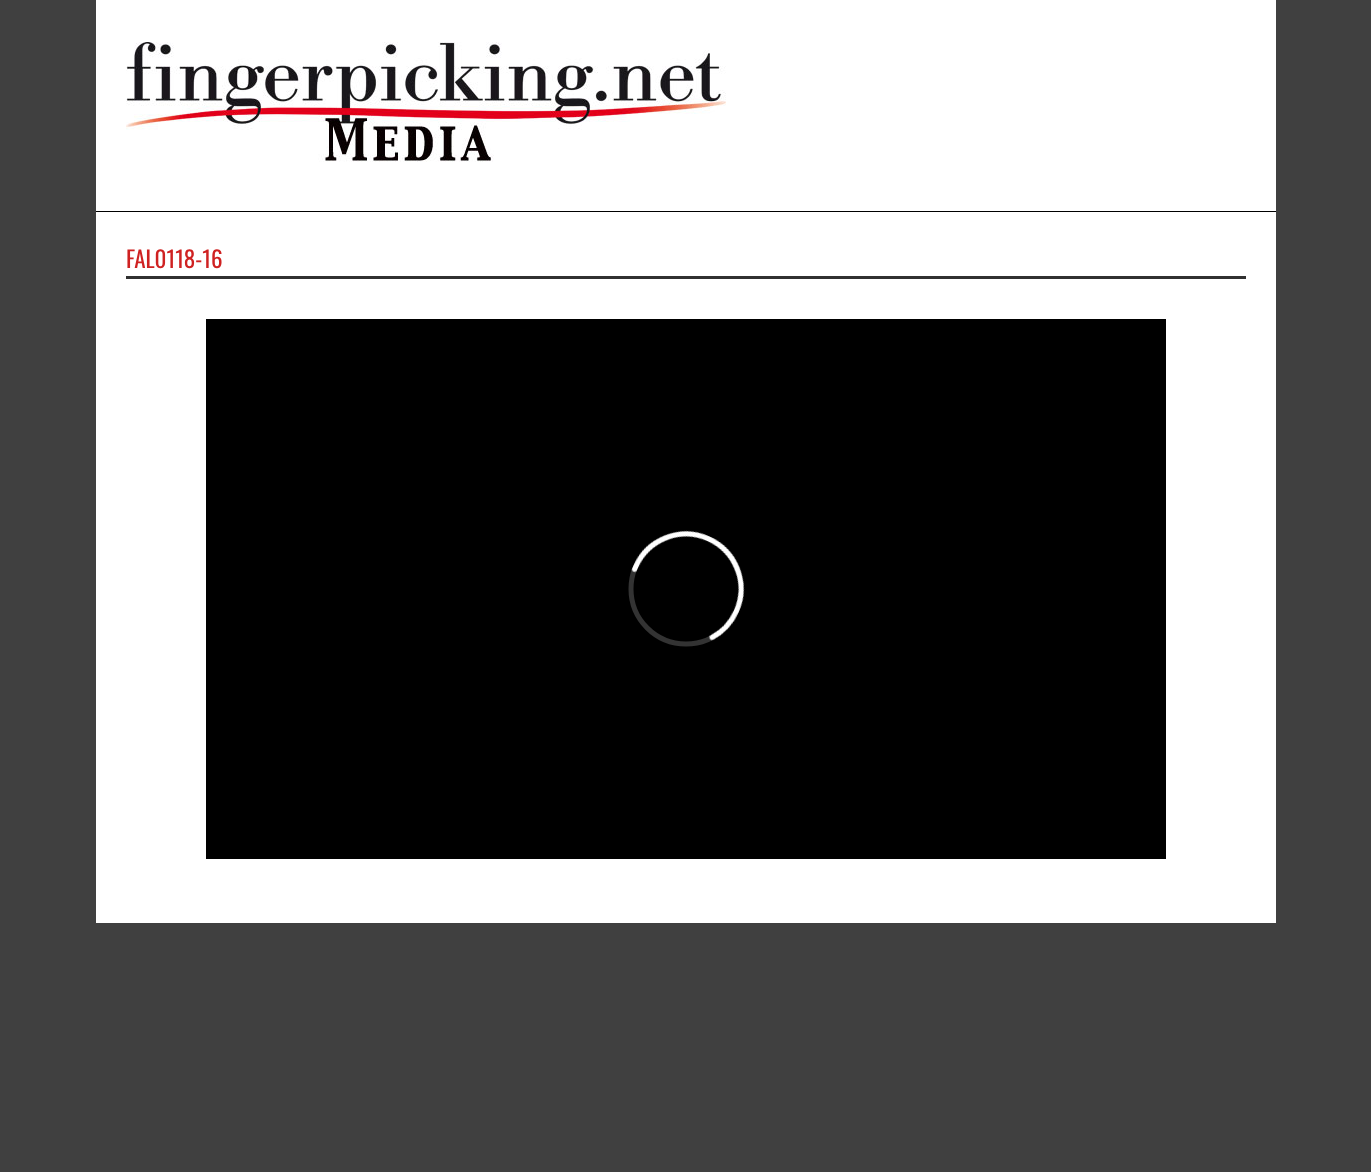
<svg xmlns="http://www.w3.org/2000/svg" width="1371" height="1172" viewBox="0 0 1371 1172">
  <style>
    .t1 { font: 23px Oswald; fill: #cf2121; }
  </style>
  <rect width="100%" height="100%" fill="#404040"/>
  <rect x="96" y="0" width="1180" height="211" fill="#fff"/>
  <image x="126" y="42" width="600" height="120" href="images/1.png"/>
  <rect x="96" y="211" width="1180" height="1" fill="#000"/>
  <rect x="96" y="212" width="1180" height="711" fill="#fff"/>
  <rect x="126" y="276" width="1120" height="3" fill="#313131"/>
  <text x="126" y="268" class="t1">FAL0118-16</text>
  <image x="206" y="319" width="960" height="540" href="images/2.png"/>
</svg>
